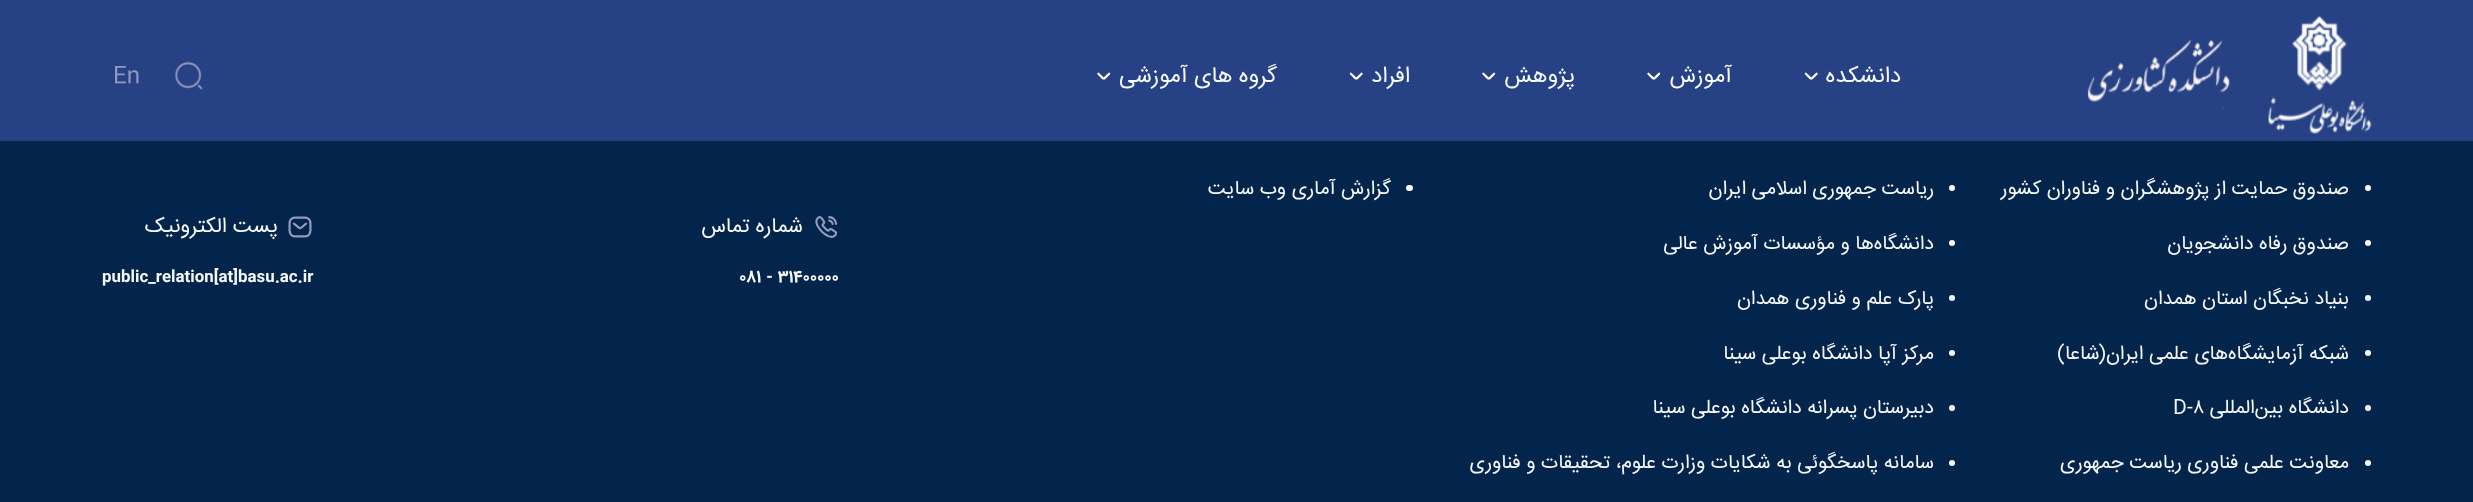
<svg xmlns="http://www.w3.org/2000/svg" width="2473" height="502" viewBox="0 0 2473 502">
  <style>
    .t1 { font: 22.5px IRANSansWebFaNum; direction: rtl; fill: #f7f9fc; }
    .t2 { font: 22.5px IRANSansWebFaNum; fill: #959abd; }
    .t3 { font: 19.7px IRANSansWebFaNum; direction: rtl; fill: #f7f9fc; }
    .t4 { font: 19.7px IRANSansWebFaNum; fill: #f7f9fc; }
    .t5 { font: 21px IRANSansWebFaNum; direction: rtl; fill: #f7f9fc; }
    .t6 { font: bold 16.9px IRANSansWebFaNum; fill: #f7f9fc; }
  </style>
  <rect width="100%" height="100%" fill="#04254b"/>
  <rect x="0" y="0" width="2473" height="141" fill="#274185"/>
  <image x="2268" y="15" width="104" height="119" href="images/1.png"/>
  <image x="2087" y="39" width="143" height="71" href="images/2.png"/>
  <text x="1901" y="82" class="t1">دانشکده</text>
  <image x="1804" y="72" width="14" height="8" href="images/3.png"/>
  <text x="1732" y="82" class="t1">آموزش</text>
  <image x="1647" y="72" width="14" height="8" href="images/4.png"/>
  <text x="1575" y="82" class="t1">پژوهش</text>
  <image x="1482" y="72" width="14" height="8" href="images/5.png"/>
  <text x="1410" y="82" class="t1">افراد</text>
  <image x="1349" y="72" width="14" height="8" href="images/3.png"/>
  <text x="1277" y="82" class="t1">گروه های آموزشی</text>
  <image x="1097" y="72" width="14" height="8" href="images/4.png"/>
  <image x="174" y="61" width="29" height="29" href="images/6.png"/>
  <text x="113" y="82" class="t2">En</text>
  <circle cx="2368" cy="188" r="3" fill="#f7f9fc"/>
  <text x="2349" y="194" class="t3">صندوق حمایت از پژوهشگران و فناوران کشور</text>
  <circle cx="1952" cy="188" r="3" fill="#f7f9fc"/>
  <text x="1934" y="194" class="t3">ریاست جمهوری اسلامی ایران</text>
  <circle cx="2368" cy="243" r="3" fill="#f7f9fc"/>
  <text x="2349" y="249" class="t3">صندوق رفاه دانشجویان</text>
  <circle cx="1952" cy="243" r="3" fill="#f7f9fc"/>
  <text x="1934" y="249" class="t3">دانشگاه‌ها و مؤسسات آموزش عالی</text>
  <circle cx="2368" cy="298" r="3" fill="#f7f9fc"/>
  <text x="2349" y="304" class="t3">بنیاد نخبگان استان همدان</text>
  <circle cx="1952" cy="298" r="3" fill="#f7f9fc"/>
  <text x="1934" y="304" class="t3">پارک علم و فناوری همدان</text>
  <circle cx="2368" cy="353" r="3" fill="#f7f9fc"/>
  <text x="2349" y="359" class="t3">شبکه آزمایشگاه‌های علمی ایران(شاعا)</text>
  <circle cx="1952" cy="353" r="3" fill="#f7f9fc"/>
  <text x="1934" y="359" class="t3">مرکز آپا دانشگاه بوعلی سینا</text>
  <circle cx="2368" cy="408" r="3" fill="#f7f9fc"/>
  <text x="2349" y="413" class="t3">دانشگاه بین‌المللی</text>
  <text x="2173" y="413" class="t4">D-۸</text>
  <circle cx="1952" cy="408" r="3" fill="#f7f9fc"/>
  <text x="1934" y="413" class="t3">دبیرستان پسرانه دانشگاه بوعلی سینا</text>
  <circle cx="2368" cy="463" r="3" fill="#f7f9fc"/>
  <text x="2349" y="468" class="t3">معاونت علمی فناوری ریاست جمهوری</text>
  <circle cx="1952" cy="463" r="3" fill="#f7f9fc"/>
  <text x="1934" y="468" class="t3">سامانه پاسخگوئی به شکایات وزارت علوم، تحقیقات و فناوری</text>
  <rect x="1406" y="185" width="7" height="6" rx="3" fill="#f7f9fc"/>
  <text x="1391" y="194" class="t3">گزارش آماری وب‌ سایت</text>
  <image x="815" y="216" width="23" height="22" href="images/7.png"/>
  <text x="803" y="232" class="t5">شماره تماس</text>
  <text x="739" y="282" class="t6">081 - 31400000</text>
  <image x="288" y="216" width="24" height="22" href="images/8.png"/>
  <text x="278" y="232" class="t5">پست الکترونیک</text>
  <text x="102" y="282" class="t6">public_relation[at]basu.ac.ir</text>
</svg>
